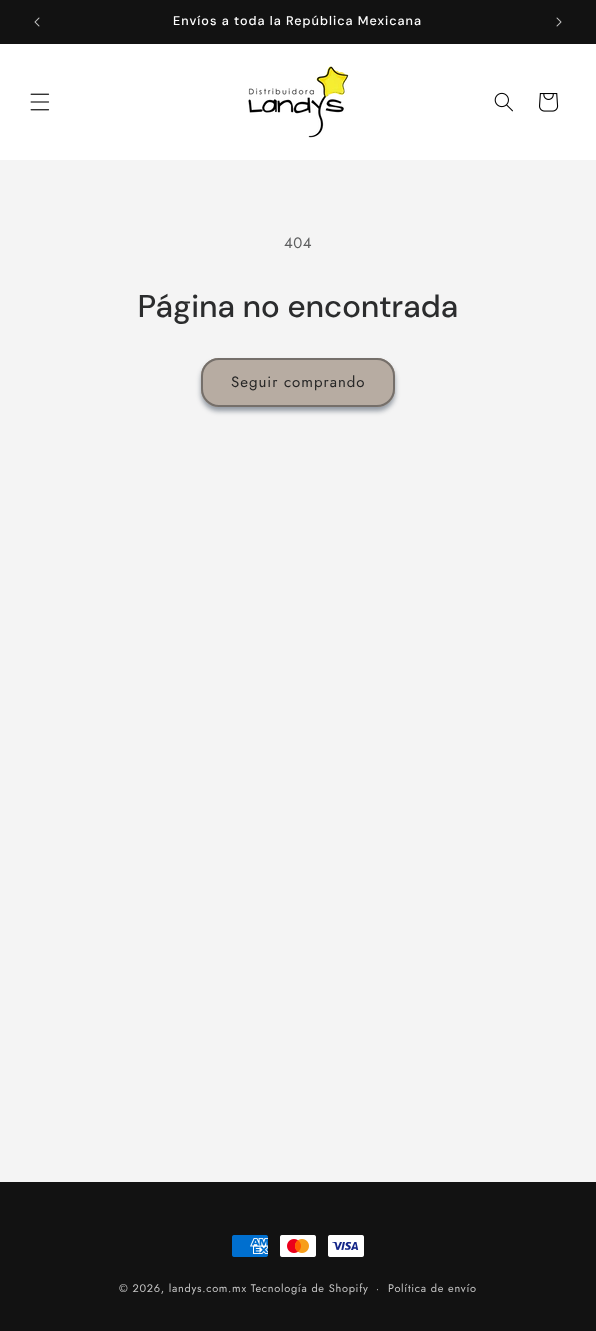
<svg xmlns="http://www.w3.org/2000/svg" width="596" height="1331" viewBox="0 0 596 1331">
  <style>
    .t1 { font: 500 12.6px 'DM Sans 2'; letter-spacing: 1px; fill: #fff; }
    .t2 { font: 15px Jost; letter-spacing: 0.5px; fill: #5d5e5f; }
    .t3 { font: 500 31.5px DM Sans; letter-spacing: 0.6px; fill: #2b2c2d; }
    .t4 { font: 15px Jost; letter-spacing: 1px; fill: #262626; }
    .t5 { font: 11px Jost; letter-spacing: 0.7px; fill: #c4c4c4; }
    .t6 { font: 10px Jost; letter-spacing: 0.7px; fill: #c4c4c4; }
  </style>
  <rect width="100%" height="100%" fill="#f4f4f4"/>
  <rect x="0" y="0" width="596" height="44" fill="#121212"/>
  <image x="34" y="17" width="6" height="10" href="images/1.png"/>
  <text x="173" y="25" class="t1">Envíos a toda la República Mexicana</text>
  <image x="556" y="17" width="6" height="10" href="images/2.png"/>
  <rect x="0" y="44" width="596" height="116" fill="#fff"/>
  <image x="30" y="93" width="20" height="18" href="images/3.png"/>
  <image x="248" y="66" width="101" height="72" href="images/4.png"/>
  <image x="494" y="92" width="19" height="20" href="images/5.png"/>
  <image x="539" y="93" width="20" height="19" href="images/6.png"/>
  <text x="284" y="248" class="t2">404</text>
  <text x="138" y="317" class="t3">Página no encontrada</text>
  <rect x="201" y="362" width="194" height="49" rx="18" fill="#00112866" filter="blur(2.5px)"/>
  <rect x="201" y="358" width="194" height="49" rx="18" fill="#b7aca2"/>
  <rect x="202" y="359" width="192" height="47" rx="17" fill="none" stroke="#b7aca2" stroke-width="2"/>
  <rect x="202" y="359" width="192" height="47" rx="17" fill="none" stroke="#26262673" stroke-width="2"/>
  <text x="231" y="387" class="t4">Seguir comprando</text>
  <rect x="0" y="1182" width="596" height="149" fill="#121212"/>
  <image x="232" y="1235" width="36" height="22" href="images/7.png"/>
  <image x="280" y="1235" width="36" height="22" href="images/8.png"/>
  <image x="328" y="1235" width="36" height="22" href="images/9.png"/>
  <text x="119" y="1292" class="t5">© 2026, landys.com.mx Tecnología de Shopify</text>
  <text x="376" y="1292" class="t6">·</text>
  <text x="388" y="1292" class="t5">Política de envío</text>
</svg>
